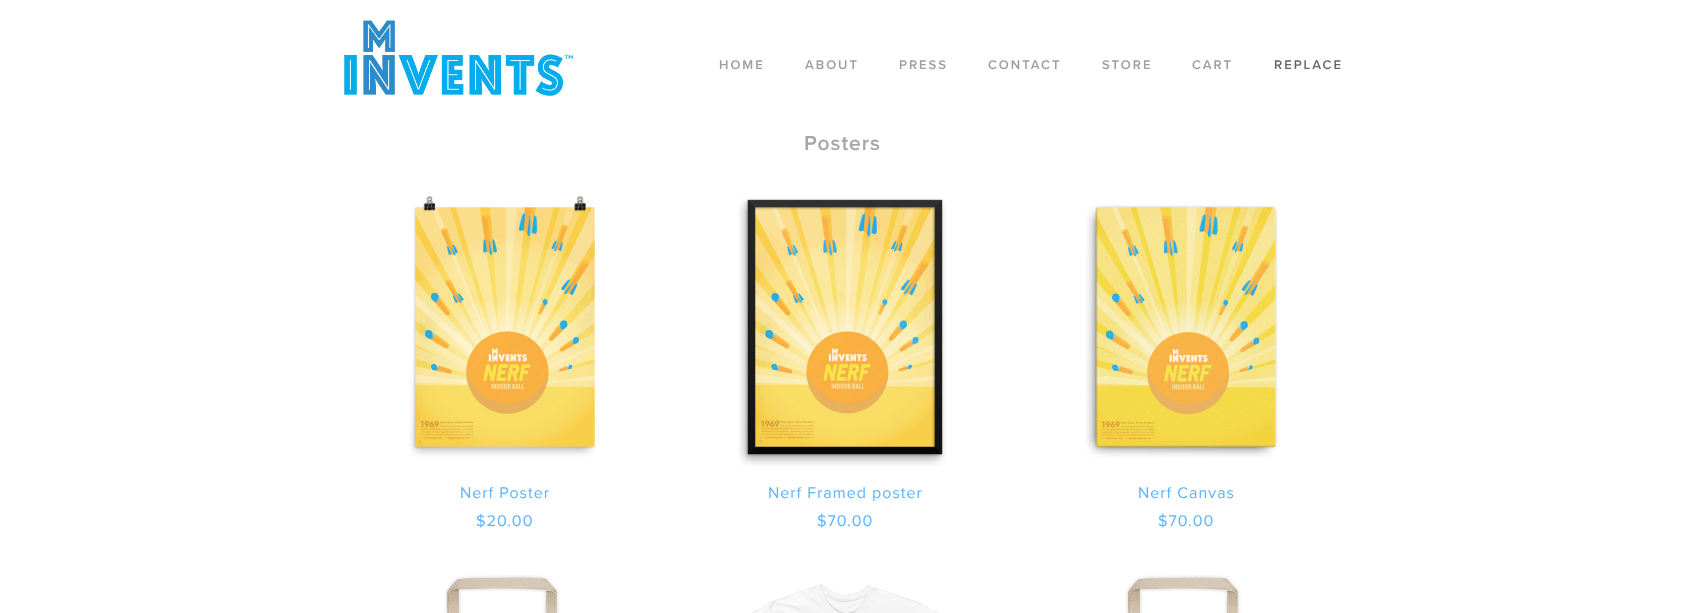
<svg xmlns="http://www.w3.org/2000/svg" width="1685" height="613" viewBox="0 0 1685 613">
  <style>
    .t1 { font: 600 13px Proxima Nova; letter-spacing: 2px; fill: #9e9e9e; }
    .t2 { font: 600 13px Proxima Nova; letter-spacing: 2px; fill: #666; }
    .t3 { font: 600 21px Proxima Nova; letter-spacing: 1px; fill: #a6a6a6; }
    .t4 { font: 16px Proxima Nova; letter-spacing: 1px; fill: #5cb3ff; }
  </style>
  <rect width="100%" height="100%" fill="#fff"/>
  <image x="343" y="20" width="231" height="76" href="images/1.png"/>
  <text x="719" y="69" class="t1">HOME</text>
  <text x="805" y="69" class="t1">ABOUT</text>
  <text x="899" y="69" class="t1">PRESS</text>
  <text x="988" y="69" class="t1">CONTACT</text>
  <text x="1102" y="69" class="t1">STORE</text>
  <text x="1192" y="69" class="t1">CART</text>
  <text x="1274" y="69" class="t2">REPLACE</text>
  <text x="804" y="150" class="t3">Posters</text>
  <image x="409" y="196" width="186" height="261" href="images/2.png"/>
  <text x="460" y="498" class="t4">Nerf Poster</text>
  <text x="476" y="526" class="t4">$20.00</text>
  <image x="738" y="198" width="208" height="268" href="images/3.png"/>
  <text x="768" y="498" class="t4">Nerf Framed poster</text>
  <text x="817" y="526" class="t4">$70.00</text>
  <image x="1086" y="205" width="192" height="253" href="images/4.png"/>
  <text x="1138" y="498" class="t4">Nerf Canvas</text>
  <text x="1158" y="526" class="t4">$70.00</text>
  <image x="444" y="575" width="116" height="38" href="images/5.png"/>
  <image x="752" y="584" width="187" height="29" href="images/6.png"/>
  <image x="1125" y="575" width="116" height="38" href="images/5.png"/>
</svg>
